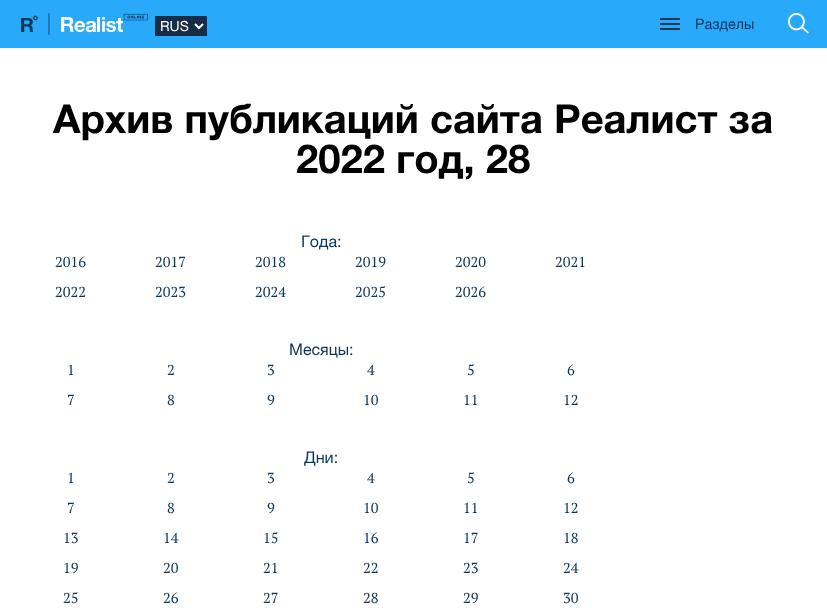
<svg xmlns="http://www.w3.org/2000/svg" width="827" height="614" viewBox="0 0 827 614">
  <style>
    .t1 { font: 14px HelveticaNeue; fill: #fff; }
    .t2 { font: 14.5px HelveticaNeue; fill: #0b3659; }
    .t3 { font: bold 40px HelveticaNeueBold; fill: #000; }
    .t4 { font: 16px HelveticaNeue; fill: #0b3659; }
    .t5 { font: 14.5px PT Serif; fill: #0b3659; }
  </style>
  <rect width="100%" height="100%" fill="#fff"/>
  <rect x="0" y="0" width="827" height="48" fill="#28a9fa"/>
  <image x="21" y="13" width="127" height="22" href="images/1.png"/>
  <rect x="155" y="16" width="52" height="20" fill="#172d45"/>
  <path d="M195 24L199 28L203 24" fill="none" stroke="#fff" stroke-width="2"/>
  <text x="160" y="31" class="t1">RUS</text>
  <rect x="660" y="23" width="20" height="2" fill="#0b3659"/>
  <rect x="660" y="18" width="20" height="2" fill="#0b3659"/>
  <rect x="660" y="28" width="20" height="2" fill="#0b3659"/>
  <text x="695" y="29" class="t2">Разделы</text>
  <image x="788" y="12" width="21" height="22" href="images/2.png"/>
  <text x="53" y="133" class="t3">Архив публикаций сайта Реалист за</text>
  <text x="296" y="173" class="t3">2022 год, 28</text>
  <text x="301" y="247" class="t4">Года:</text>
  <text x="55" y="267" class="t5">2016</text>
  <text x="155" y="267" class="t5">2017</text>
  <text x="255" y="267" class="t5">2018</text>
  <text x="355" y="267" class="t5">2019</text>
  <text x="455" y="267" class="t5">2020</text>
  <text x="555" y="267" class="t5">2021</text>
  <text x="55" y="297" class="t5">2022</text>
  <text x="155" y="297" class="t5">2023</text>
  <text x="255" y="297" class="t5">2024</text>
  <text x="355" y="297" class="t5">2025</text>
  <text x="455" y="297" class="t5">2026</text>
  <text x="289" y="355" class="t4">Месяцы:</text>
  <text x="67" y="375" class="t5">1</text>
  <text x="167" y="375" class="t5">2</text>
  <text x="267" y="375" class="t5">3</text>
  <text x="367" y="375" class="t5">4</text>
  <text x="467" y="375" class="t5">5</text>
  <text x="567" y="375" class="t5">6</text>
  <text x="67" y="405" class="t5">7</text>
  <text x="167" y="405" class="t5">8</text>
  <text x="267" y="405" class="t5">9</text>
  <text x="363" y="405" class="t5">10</text>
  <text x="463" y="405" class="t5">11</text>
  <text x="563" y="405" class="t5">12</text>
  <text x="304" y="463" class="t4">Дни:</text>
  <text x="67" y="483" class="t5">1</text>
  <text x="167" y="483" class="t5">2</text>
  <text x="267" y="483" class="t5">3</text>
  <text x="367" y="483" class="t5">4</text>
  <text x="467" y="483" class="t5">5</text>
  <text x="567" y="483" class="t5">6</text>
  <text x="67" y="513" class="t5">7</text>
  <text x="167" y="513" class="t5">8</text>
  <text x="267" y="513" class="t5">9</text>
  <text x="363" y="513" class="t5">10</text>
  <text x="463" y="513" class="t5">11</text>
  <text x="563" y="513" class="t5">12</text>
  <text x="63" y="543" class="t5">13</text>
  <text x="163" y="543" class="t5">14</text>
  <text x="263" y="543" class="t5">15</text>
  <text x="363" y="543" class="t5">16</text>
  <text x="463" y="543" class="t5">17</text>
  <text x="563" y="543" class="t5">18</text>
  <text x="63" y="573" class="t5">19</text>
  <text x="163" y="573" class="t5">20</text>
  <text x="263" y="573" class="t5">21</text>
  <text x="363" y="573" class="t5">22</text>
  <text x="463" y="573" class="t5">23</text>
  <text x="563" y="573" class="t5">24</text>
  <text x="63" y="603" class="t5">25</text>
  <text x="163" y="603" class="t5">26</text>
  <text x="263" y="603" class="t5">27</text>
  <text x="363" y="603" class="t5">28</text>
  <text x="463" y="603" class="t5">29</text>
  <text x="563" y="603" class="t5">30</text>
</svg>
